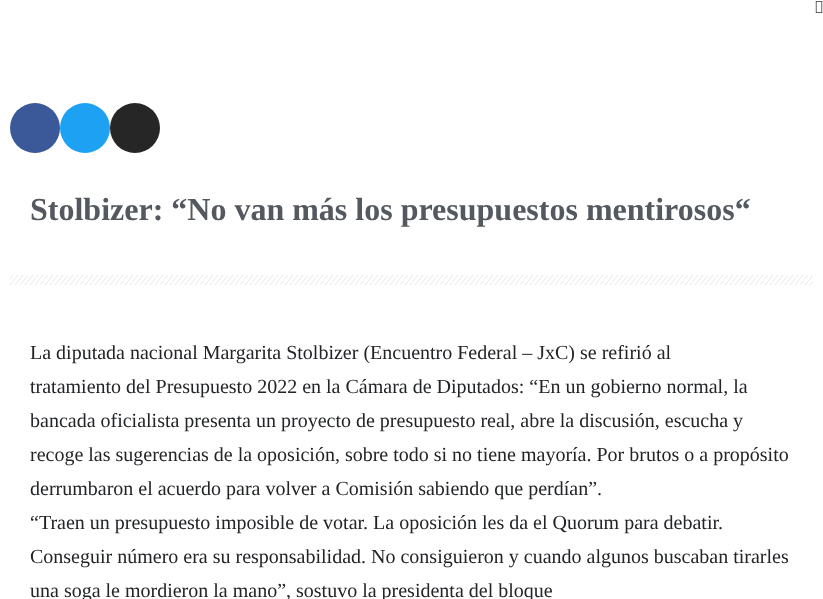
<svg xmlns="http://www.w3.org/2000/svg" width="823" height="599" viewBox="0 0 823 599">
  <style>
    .t1 { font: bold 32px Liberation Serif; fill: #54595f; }
    .t2 { font: 20px Liberation Serif; fill: #222427; }
  </style>
  <rect width="100%" height="100%" fill="#fff"/>
  <image x="815" y="1" width="8" height="12" href="images/1.png"/>
  <circle cx="35" cy="128" r="25" fill="#3b5998"/>
  <circle cx="85" cy="128" r="25" fill="#1da1f2"/>
  <circle cx="135" cy="128" r="25" fill="#262626"/>
  <text x="30" y="220" class="t1">Stolbizer: “No van más los presupuestos mentirosos“</text>
  <image x="10" y="275" width="803" height="10" href="images/2.png"/>
  <text x="30" y="359" class="t2">La diputada nacional Margarita Stolbizer (Encuentro Federal – JxC) se refirió al</text>
  <text x="30" y="393" class="t2">tratamiento del Presupuesto 2022 en la Cámara de Diputados: “En un gobierno normal, la</text>
  <text x="30" y="427" class="t2">bancada oficialista presenta un proyecto de presupuesto real, abre la discusión, escucha y</text>
  <text x="30" y="461" class="t2">recoge las sugerencias de la oposición, sobre todo si no tiene mayoría. Por brutos o a propósito</text>
  <text x="30" y="495" class="t2">derrumbaron el acuerdo para volver a Comisión sabiendo que perdían”.</text>
  <text x="30" y="529" class="t2">“Traen un presupuesto imposible de votar. La oposición les da el Quorum para debatir.</text>
  <text x="30" y="563" class="t2">Conseguir número era su responsabilidad. No consiguieron y cuando algunos buscaban tirarles</text>
  <text x="30" y="597" class="t2">una soga le mordieron la mano”, sostuvo la presidenta del bloque</text>
</svg>
